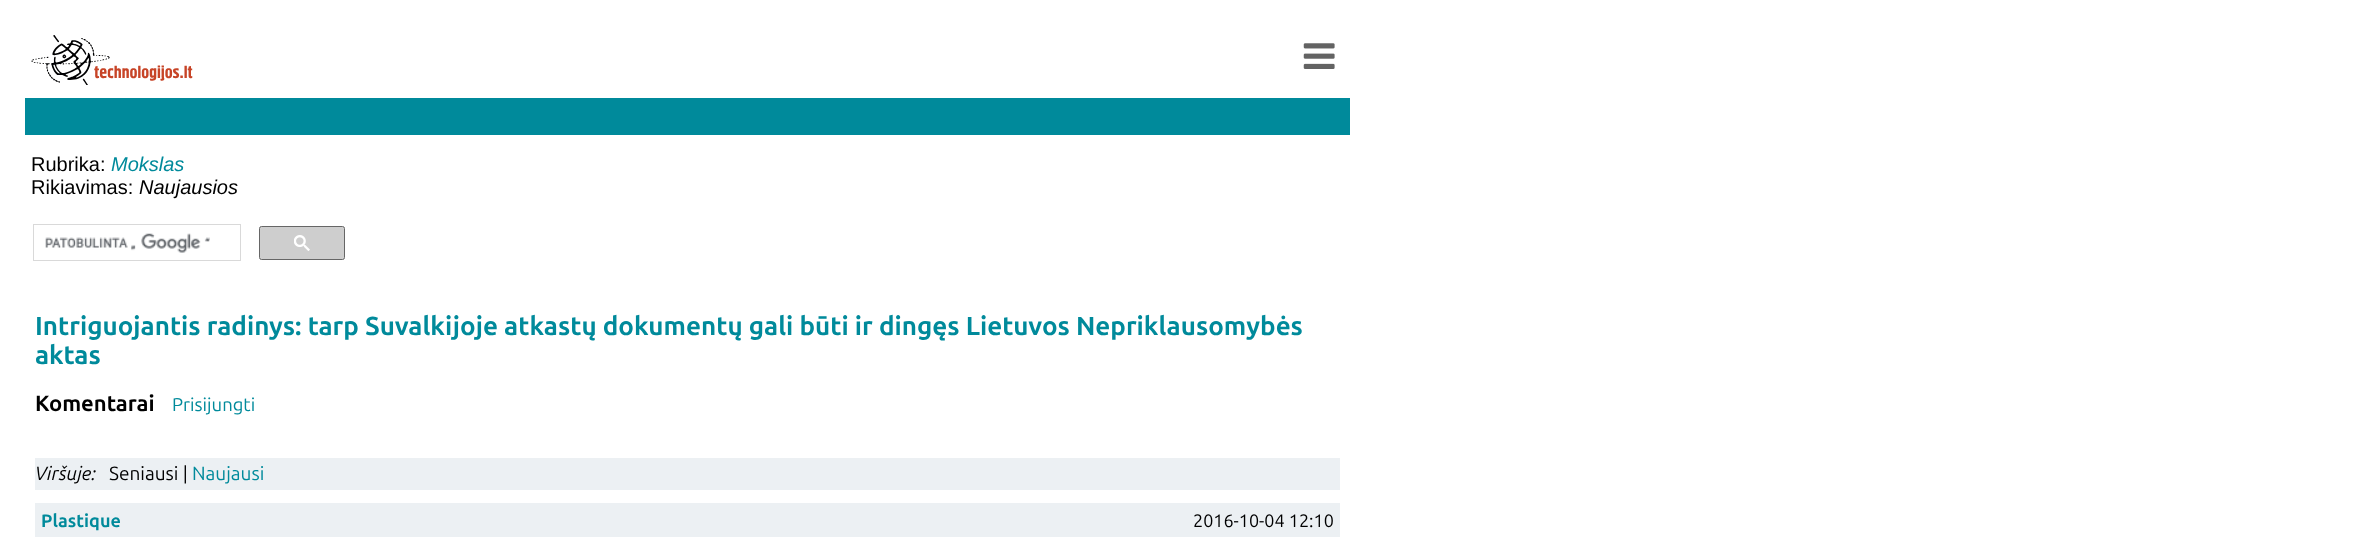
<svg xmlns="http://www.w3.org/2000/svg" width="2356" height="537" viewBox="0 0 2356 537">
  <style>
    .t1 { font: 20px Liberation Sans; fill: #000; }
    .t2 { font: italic 20px Liberation Sans; fill: #008a9b; }
    .t3 { font: italic 20px Liberation Sans; fill: #000; }
    .t4 { font: bold 26px Ubuntu; fill: #008a9b; }
    .t5 { font: bold 22px Ubuntu; fill: #000; }
    .t6 { font: 18.5px Ubuntu; fill: #008a9b; }
    .t7 { font: italic 19px Ubuntu; fill: #000; }
    .t8 { font: 19px Ubuntu; fill: #000; }
    .t9 { font: 19px Ubuntu; fill: #008a9b; }
    .t10 { font: bold 18px Ubuntu; fill: #008a9b; }
    .t11 { font: 18px Ubuntu; fill: #000; }
  </style>
  <rect width="100%" height="100%" fill="#fff"/>
  <image x="31" y="35" width="162" height="50" href="images/1.png"/>
  <image x="1303" y="43" width="32" height="26" href="images/2.png"/>
  <rect x="25" y="98" width="1325" height="37" fill="#008a9b"/>
  <text x="31" y="171" class="t1">Rubrika:</text>
  <text x="111" y="171" class="t2">Mokslas</text>
  <text x="31" y="194" class="t1">Rikiavimas:</text>
  <text x="139" y="194" class="t3">Naujausios</text>
  <rect x="33.5" y="224.5" width="207" height="36" fill="none" stroke="#d9d9d9"/>
  <image x="45" y="233" width="165" height="20" href="images/3.png"/>
  <rect x="259.5" y="226.5" width="85" height="33" rx="2" fill="#cecece" stroke="#666"/>
  <image x="294" y="235" width="16" height="16" href="images/4.png"/>
  <text x="35" y="335" class="t4">Intriguojantis radinys: tarp Suvalkijoje atkastų dokumentų gali būti ir dingęs Lietuvos Nepriklausomybės</text>
  <text x="35" y="364" class="t4">aktas</text>
  <text x="35" y="411" class="t5">Komentarai</text>
  <text x="172" y="411" class="t6">Prisijungti</text>
  <rect x="35" y="458" width="1305" height="32" fill="#ecf0f3"/>
  <text x="35" y="480" class="t7">Viršuje:</text>
  <text x="109" y="480" class="t8">Seniausi |</text>
  <text x="192" y="480" class="t9">Naujausi</text>
  <rect x="35" y="503" width="1305" height="34" fill="#ecf0f3"/>
  <text x="41" y="527" class="t10">Plastique</text>
  <text x="1193" y="527" class="t11">2016-10-04 12:10</text>
</svg>
